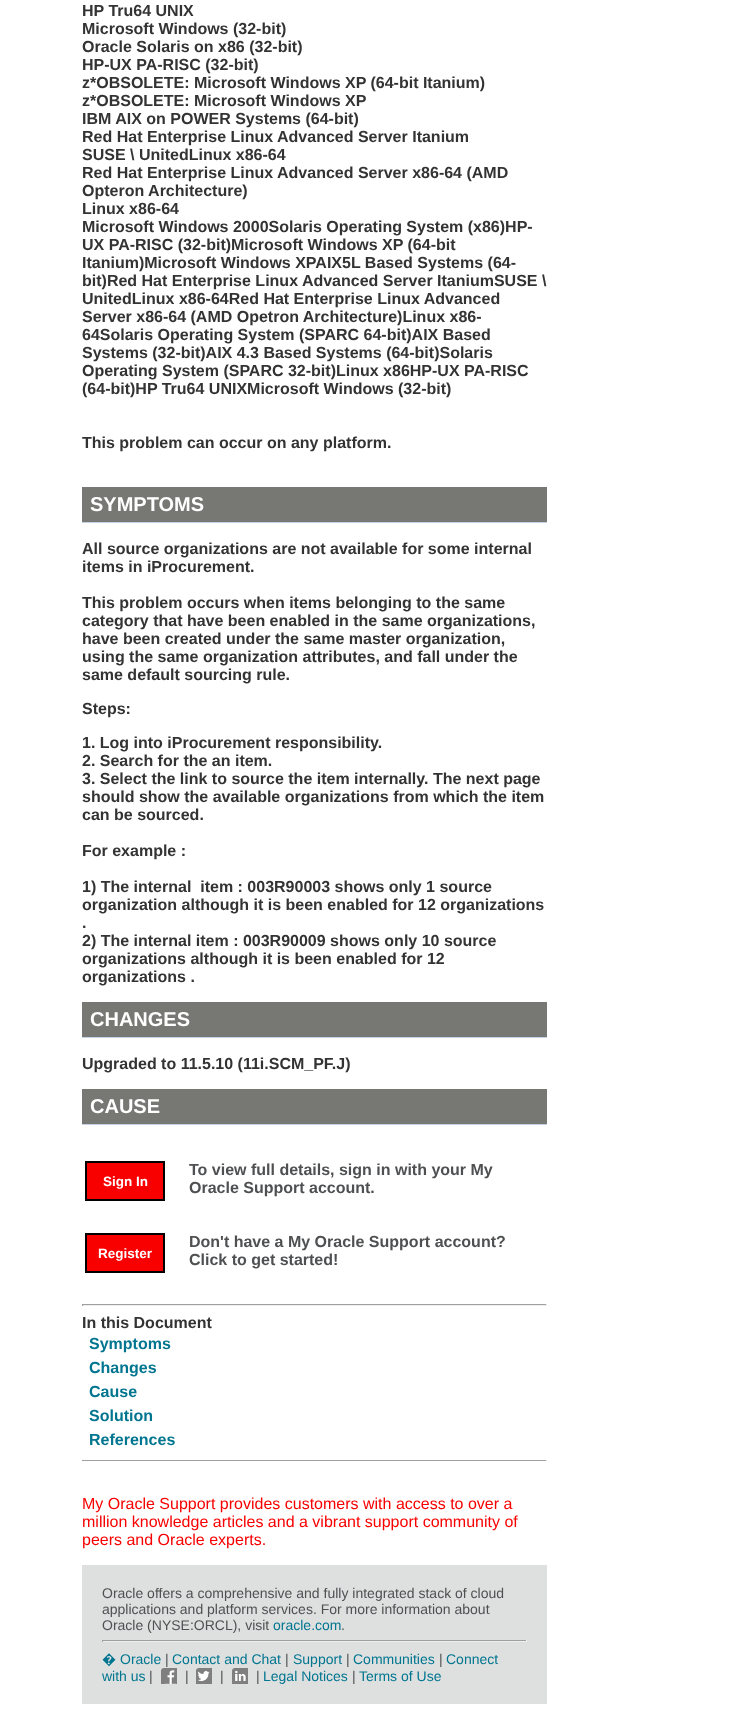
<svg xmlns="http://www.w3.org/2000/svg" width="754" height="1714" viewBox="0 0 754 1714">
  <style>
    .t1 { font: bold 16px Liberation Sans; fill: #333; }
    .t2 { font: bold 20px Liberation Sans; fill: #fff; }
    .t3 { font: bold 13.5px Liberation Sans; fill: #fff; }
    .t4 { font: bold 16px Liberation Sans; fill: #4e5052; }
    .t5 { font: bold 16px Liberation Sans; fill: #00758f; }
    .t6 { font: 16px Liberation Sans; fill: #f80000; }
    .t7 { font: 14px Liberation Sans; fill: #4e5052; }
    .t8 { font: 14px Liberation Sans; fill: #00758f; }
    .t9 { font: 14px Noto Sans; fill: #00758f; }
  </style>
  <rect width="100%" height="100%" fill="#fff"/>
  <text x="82" y="16" class="t1">HP Tru64 UNIX</text>
  <text x="82" y="34" class="t1">Microsoft Windows (32-bit)</text>
  <text x="82" y="52" class="t1">Oracle Solaris on x86 (32-bit)</text>
  <text x="82" y="70" class="t1">HP-UX PA-RISC (32-bit)</text>
  <text x="82" y="88" class="t1">z*OBSOLETE: Microsoft Windows XP (64-bit Itanium)</text>
  <text x="82" y="106" class="t1">z*OBSOLETE: Microsoft Windows XP</text>
  <text x="82" y="124" class="t1">IBM AIX on POWER Systems (64-bit)</text>
  <text x="82" y="142" class="t1">Red Hat Enterprise Linux Advanced Server Itanium</text>
  <text x="82" y="160" class="t1">SUSE \ UnitedLinux x86-64</text>
  <text x="82" y="178" class="t1">Red Hat Enterprise Linux Advanced Server x86-64 (AMD</text>
  <text x="82" y="196" class="t1">Opteron Architecture)</text>
  <text x="82" y="214" class="t1">Linux x86-64</text>
  <text x="82" y="232" class="t1">Microsoft Windows 2000Solaris Operating System (x86)HP-</text>
  <text x="82" y="250" class="t1">UX PA-RISC (32-bit)Microsoft Windows XP (64-bit</text>
  <text x="82" y="268" class="t1">Itanium)Microsoft Windows XPAIX5L Based Systems (64-</text>
  <text x="82" y="286" class="t1">bit)Red Hat Enterprise Linux Advanced Server ItaniumSUSE \</text>
  <text x="82" y="304" class="t1">UnitedLinux x86-64Red Hat Enterprise Linux Advanced</text>
  <text x="82" y="322" class="t1">Server x86-64 (AMD Opetron Architecture)Linux x86-</text>
  <text x="82" y="340" class="t1">64Solaris Operating System (SPARC 64-bit)AIX Based</text>
  <text x="82" y="358" class="t1">Systems (32-bit)AIX 4.3 Based Systems (64-bit)Solaris</text>
  <text x="82" y="376" class="t1">Operating System (SPARC 32-bit)Linux x86HP-UX PA-RISC</text>
  <text x="82" y="394" class="t1">(64-bit)HP Tru64 UNIXMicrosoft Windows (32-bit)</text>
  <text x="82" y="448" class="t1">This problem can occur on any platform.</text>
  <rect x="82" y="487" width="465" height="35" fill="#777773"/>
  <rect x="82" y="522" width="465" height="1" fill="#c4d1e6"/>
  <text x="90" y="511" class="t2">SYMPTOMS</text>
  <text x="82" y="554" class="t1">All source organizations are not available for some internal</text>
  <text x="82" y="572" class="t1">items in iProcurement.</text>
  <text x="82" y="608" class="t1">This problem occurs when items belonging to the same</text>
  <text x="82" y="626" class="t1">category that have been enabled in the same organizations,</text>
  <text x="82" y="644" class="t1">have been created under the same master organization,</text>
  <text x="82" y="662" class="t1">using the same organization attributes, and fall under the</text>
  <text x="82" y="680" class="t1">same default sourcing rule.</text>
  <text x="82" y="714" class="t1">Steps:</text>
  <text x="82" y="748" class="t1">1. Log into iProcurement responsibility.</text>
  <text x="82" y="766" class="t1">2. Search for the an item.</text>
  <text x="82" y="784" class="t1">3. Select the link to source the item internally. The next page</text>
  <text x="82" y="802" class="t1">should show the available organizations from which the item</text>
  <text x="82" y="820" class="t1">can be sourced.</text>
  <text x="82" y="856" class="t1">For example :</text>
  <text x="82" y="892" class="t1" xml:space="preserve">1) The internal  item : 003R90003 shows only 1 source</text>
  <text x="82" y="910" class="t1">organization although it is been enabled for 12 organizations</text>
  <text x="82" y="928" class="t1">.</text>
  <text x="82" y="946" class="t1">2) The internal item : 003R90009 shows only 10 source</text>
  <text x="82" y="964" class="t1">organizations although it is been enabled for 12</text>
  <text x="82" y="982" class="t1">organizations .</text>
  <rect x="82" y="1002" width="465" height="35" fill="#777773"/>
  <rect x="82" y="1037" width="465" height="1" fill="#c4d1e6"/>
  <text x="90" y="1026" class="t2">CHANGES</text>
  <text x="82" y="1069" class="t1">Upgraded to 11.5.10 (11i.SCM_PF.J)</text>
  <rect x="82" y="1089" width="465" height="35" fill="#777773"/>
  <rect x="82" y="1124" width="465" height="1" fill="#c4d1e6"/>
  <text x="90" y="1113" class="t2">CAUSE</text>
  <rect x="86" y="1162" width="78" height="38" fill="#f80000" stroke="#000" stroke-width="2"/>
  <text x="103" y="1186" class="t3">Sign In</text>
  <text x="189" y="1175" class="t4">To view full details, sign in with your My</text>
  <text x="189" y="1193" class="t4">Oracle Support account.</text>
  <rect x="86" y="1234" width="78" height="38" fill="#f80000" stroke="#000" stroke-width="2"/>
  <text x="98" y="1258" class="t3">Register</text>
  <text x="189" y="1247" class="t4">Don't have a My Oracle Support account?</text>
  <text x="189" y="1265" class="t4">Click to get started!</text>
  <rect x="82" y="1304" width="465" height="1" fill="#9f9f9f"/>
  <rect x="546" y="1304" width="1" height="2" fill="#eee"/>
  <rect x="82" y="1305" width="465" height="1" fill="#eee"/>
  <rect x="82" y="1304" width="1" height="2" fill="#9f9f9f"/>
  <text x="82" y="1328" class="t1">In this Document</text>
  <text x="89" y="1349" class="t5">Symptoms</text>
  <text x="89" y="1373" class="t5">Changes</text>
  <text x="89" y="1397" class="t5">Cause</text>
  <text x="89" y="1421" class="t5">Solution</text>
  <text x="89" y="1445" class="t5">References</text>
  <rect x="82" y="1460" width="465" height="1" fill="#9f9f9f"/>
  <rect x="546" y="1460" width="1" height="1" fill="#eee"/>
  <text x="82" y="1509" class="t6">My Oracle Support provides customers with access to over a</text>
  <text x="82" y="1527" class="t6">million knowledge articles and a vibrant support community of</text>
  <text x="82" y="1545" class="t6">peers and Oracle experts.</text>
  <rect x="82" y="1565" width="465" height="139" fill="#dee0e0"/>
  <text x="102" y="1598" class="t7">Oracle offers a comprehensive and fully integrated stack of cloud</text>
  <text x="102" y="1614" class="t7">applications and platform services. For more information about</text>
  <text x="102" y="1630" class="t7">Oracle (NYSE:ORCL), visit</text>
  <text x="273" y="1630" class="t8">oracle.com</text>
  <text x="341" y="1630" class="t7">.</text>
  <rect x="102" y="1640" width="425" height="1" fill="#9f9f9f"/>
  <rect x="526" y="1640" width="1" height="2" fill="#eee"/>
  <rect x="102" y="1641" width="425" height="1" fill="#eee"/>
  <rect x="102" y="1640" width="1" height="2" fill="#9f9f9f"/>
  <text x="102" y="1664" class="t9">�</text>
  <text x="120" y="1664" class="t8">Oracle</text>
  <text x="165" y="1664" class="t7">|</text>
  <text x="172" y="1664" class="t8">Contact and Chat</text>
  <text x="285" y="1664" class="t7">|</text>
  <text x="293" y="1664" class="t8">Support</text>
  <text x="346" y="1664" class="t7">|</text>
  <text x="353" y="1664" class="t8">Communities</text>
  <text x="439" y="1664" class="t7">|</text>
  <text x="446" y="1664" class="t8">Connect</text>
  <text x="102" y="1681" class="t8">with us</text>
  <text x="149" y="1681" class="t7">|</text>
  <image x="161" y="1668" width="16" height="16" href="images/1.png"/>
  <text x="185" y="1681" class="t7">|</text>
  <image x="196" y="1668" width="16" height="16" href="images/2.png"/>
  <text x="220" y="1681" class="t7">|</text>
  <image x="232" y="1668" width="16" height="16" href="images/3.png"/>
  <text x="256" y="1681" class="t7">|</text>
  <text x="263" y="1681" class="t8">Legal Notices</text>
  <text x="352" y="1681" class="t7">|</text>
  <text x="359" y="1681" class="t8">Terms of Use</text>
</svg>
